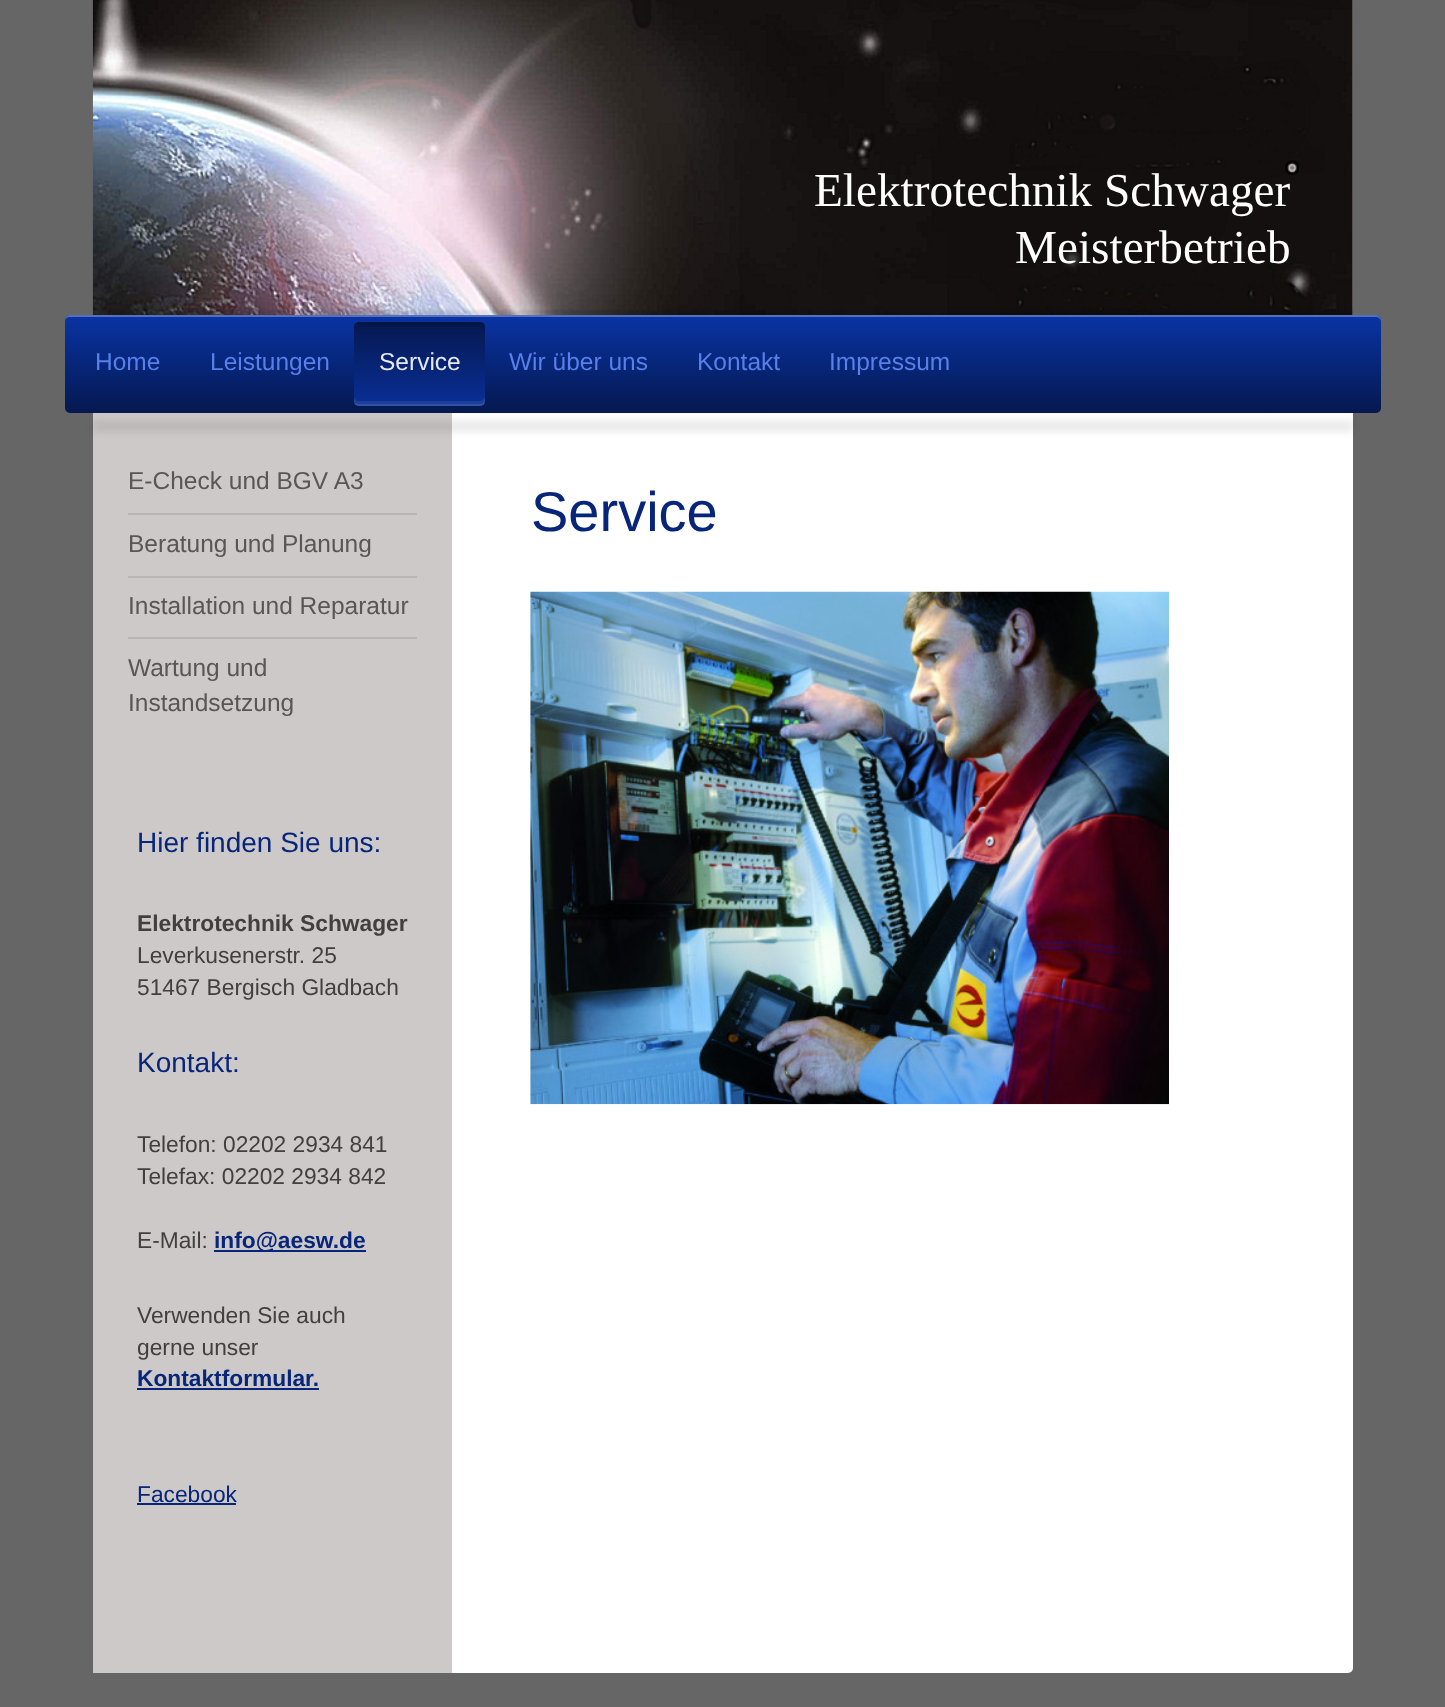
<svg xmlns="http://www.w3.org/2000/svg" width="1445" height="1707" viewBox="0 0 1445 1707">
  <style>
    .t1 { font: 47.25px Liberation Serif; fill: #fff; }
    .t2 { font: 24.5px Liberation Sans; fill: #587fea; }
    .t3 { font: 24.5px Liberation Sans; fill: #e6e9f2; }
    .t4 { font: 24.5px Liberation Sans; fill: #5a5655; }
    .t5 { font: 28px Liberation Sans; fill: #07267a; }
    .t6 { font: bold 22.75px Liberation Sans; fill: #423f3e; }
    .t7 { font: 22.75px Liberation Sans; fill: #423f3e; }
    .t8 { font: bold 22.75px Liberation Sans; fill: #07267a; }
    .t9 { font: 22.75px Liberation Sans; fill: #07267a; }
    .t10 { font: 56px Liberation Sans; fill: #07267a; }
  </style>
  <defs>
    <linearGradient id="g1" gradientUnits="userSpaceOnUse" x1="65" y1="315" x2="65" y2="413"><stop offset="0" stop-color="#0934a5"/><stop offset="1" stop-color="#05184f"/></linearGradient>
    <linearGradient id="g2" gradientUnits="userSpaceOnUse" x1="354" y1="406" x2="354" y2="322"><stop offset="0" stop-color="#092f97"/><stop offset="1" stop-color="#05184f"/></linearGradient>
  </defs>
  <rect width="100%" height="100%" fill="#666"/>
  <rect x="1352" y="0" width="1" height="315" fill="#a0a0a0"/>
  <image x="92" y="0" width="1261" height="315" href="images/1.png"/>
  <text x="814" y="206" class="t1">Elektrotechnik Schwager</text>
  <text x="1015" y="263" class="t1">Meisterbetrieb</text>
  <rect x="93" y="310" width="1260" height="42" fill="#00000014" filter="blur(1px)"/>
  <rect x="93" y="408" width="1260" height="1265" rx="5" fill="#fff"/>
  <rect x="65" y="315" width="1316" height="98" rx="5" fill="url(#g1)"/>
  <path d="M70 317H1376C1378 317 1381 319 1381 322C1381 319 1380 315 1376 315H70C66 315 65 319 65 322C65 319 67 317 70 317Z" fill="#ffffff4d"/>
  <text x="95" y="370" class="t2">Home</text>
  <text x="210" y="370" class="t2">Leistungen</text>
  <rect x="354" y="322" width="131" height="84" rx="5" fill="url(#g2)"/>
  <path d="M359 324H480C482 324 485 326 485 329V327C485 324 483 322 480 322H359C356 322 354 324 354 327V329C354 326 356 324 359 324Z" fill="#0000001a"/>
  <path d="M359 327H480C482 327 485 330 485 332V327C485 324 483 322 480 322H359C356 322 354 324 354 327V332C354 330 356 327 359 327Z" fill="#0000000a"/>
  <path d="M354 396V401C354 404 356 406 359 406H480C483 406 485 404 485 401V396C485 398 482 401 480 401H359C356 401 354 398 354 396Z" fill="#ffffff14"/>
  <path d="M354 399V401C354 404 356 406 359 406H480C483 406 485 404 485 401V399C485 402 482 404 480 404H359C356 404 354 402 354 399Z" fill="#ffffff1a"/>
  <text x="379" y="370" class="t3">Service</text>
  <text x="509" y="370" class="t2">Wir über uns</text>
  <text x="697" y="370" class="t2">Kontakt</text>
  <text x="829" y="370" class="t2">Impressum</text>
  <rect x="93" y="413" width="359" height="1260" fill="#ccc9c8"/>
  <rect x="93" y="420" width="1260" height="12" fill="#00000014" filter="blur(3.5px)"/>
  <rect x="128" y="513" width="289" height="2" fill="#b8b5b4"/>
  <text x="128" y="489" class="t4">E-Check und BGV A3</text>
  <rect x="128" y="576" width="289" height="2" fill="#b8b5b4"/>
  <text x="128" y="552" class="t4">Beratung und Planung</text>
  <rect x="128" y="637" width="289" height="2" fill="#b8b5b4"/>
  <text x="128" y="614" class="t4">Installation und Reparatur</text>
  <text x="128" y="676" class="t4">Wartung und</text>
  <text x="128" y="711" class="t4">Instandsetzung</text>
  <text x="137" y="852" class="t5">Hier finden Sie uns:</text>
  <text x="137" y="931" class="t6">Elektrotechnik Schwager</text>
  <text x="137" y="963" class="t7">Leverkusenerstr. 25</text>
  <text x="137" y="995" class="t7">51467 Bergisch Gladbach</text>
  <text x="137" y="1072" class="t5">Kontakt:</text>
  <text x="137" y="1152" class="t7">Telefon: 02202 2934 841</text>
  <text x="137" y="1184" class="t7">Telefax: 02202 2934 842</text>
  <text x="137" y="1248" class="t7">E-Mail:</text>
  <rect x="214" y="1250" width="152" height="2" fill="#07267a"/>
  <text x="214" y="1248" class="t8">info@aesw.de</text>
  <text x="137" y="1323" class="t7">Verwenden Sie auch</text>
  <text x="137" y="1355" class="t7">gerne unser</text>
  <text x="137" y="1386" class="t8">Kontaktformular.</text>
  <rect x="137" y="1388" width="182" height="2" fill="#07267a"/>
  <text x="137" y="1502" class="t9">Facebook</text>
  <rect x="137" y="1503" width="99" height="2" fill="#07267a"/>
  <text x="531" y="531" class="t10">Service</text>
  <image x="530" y="591" width="639" height="514" href="images/2.png"/>
</svg>
